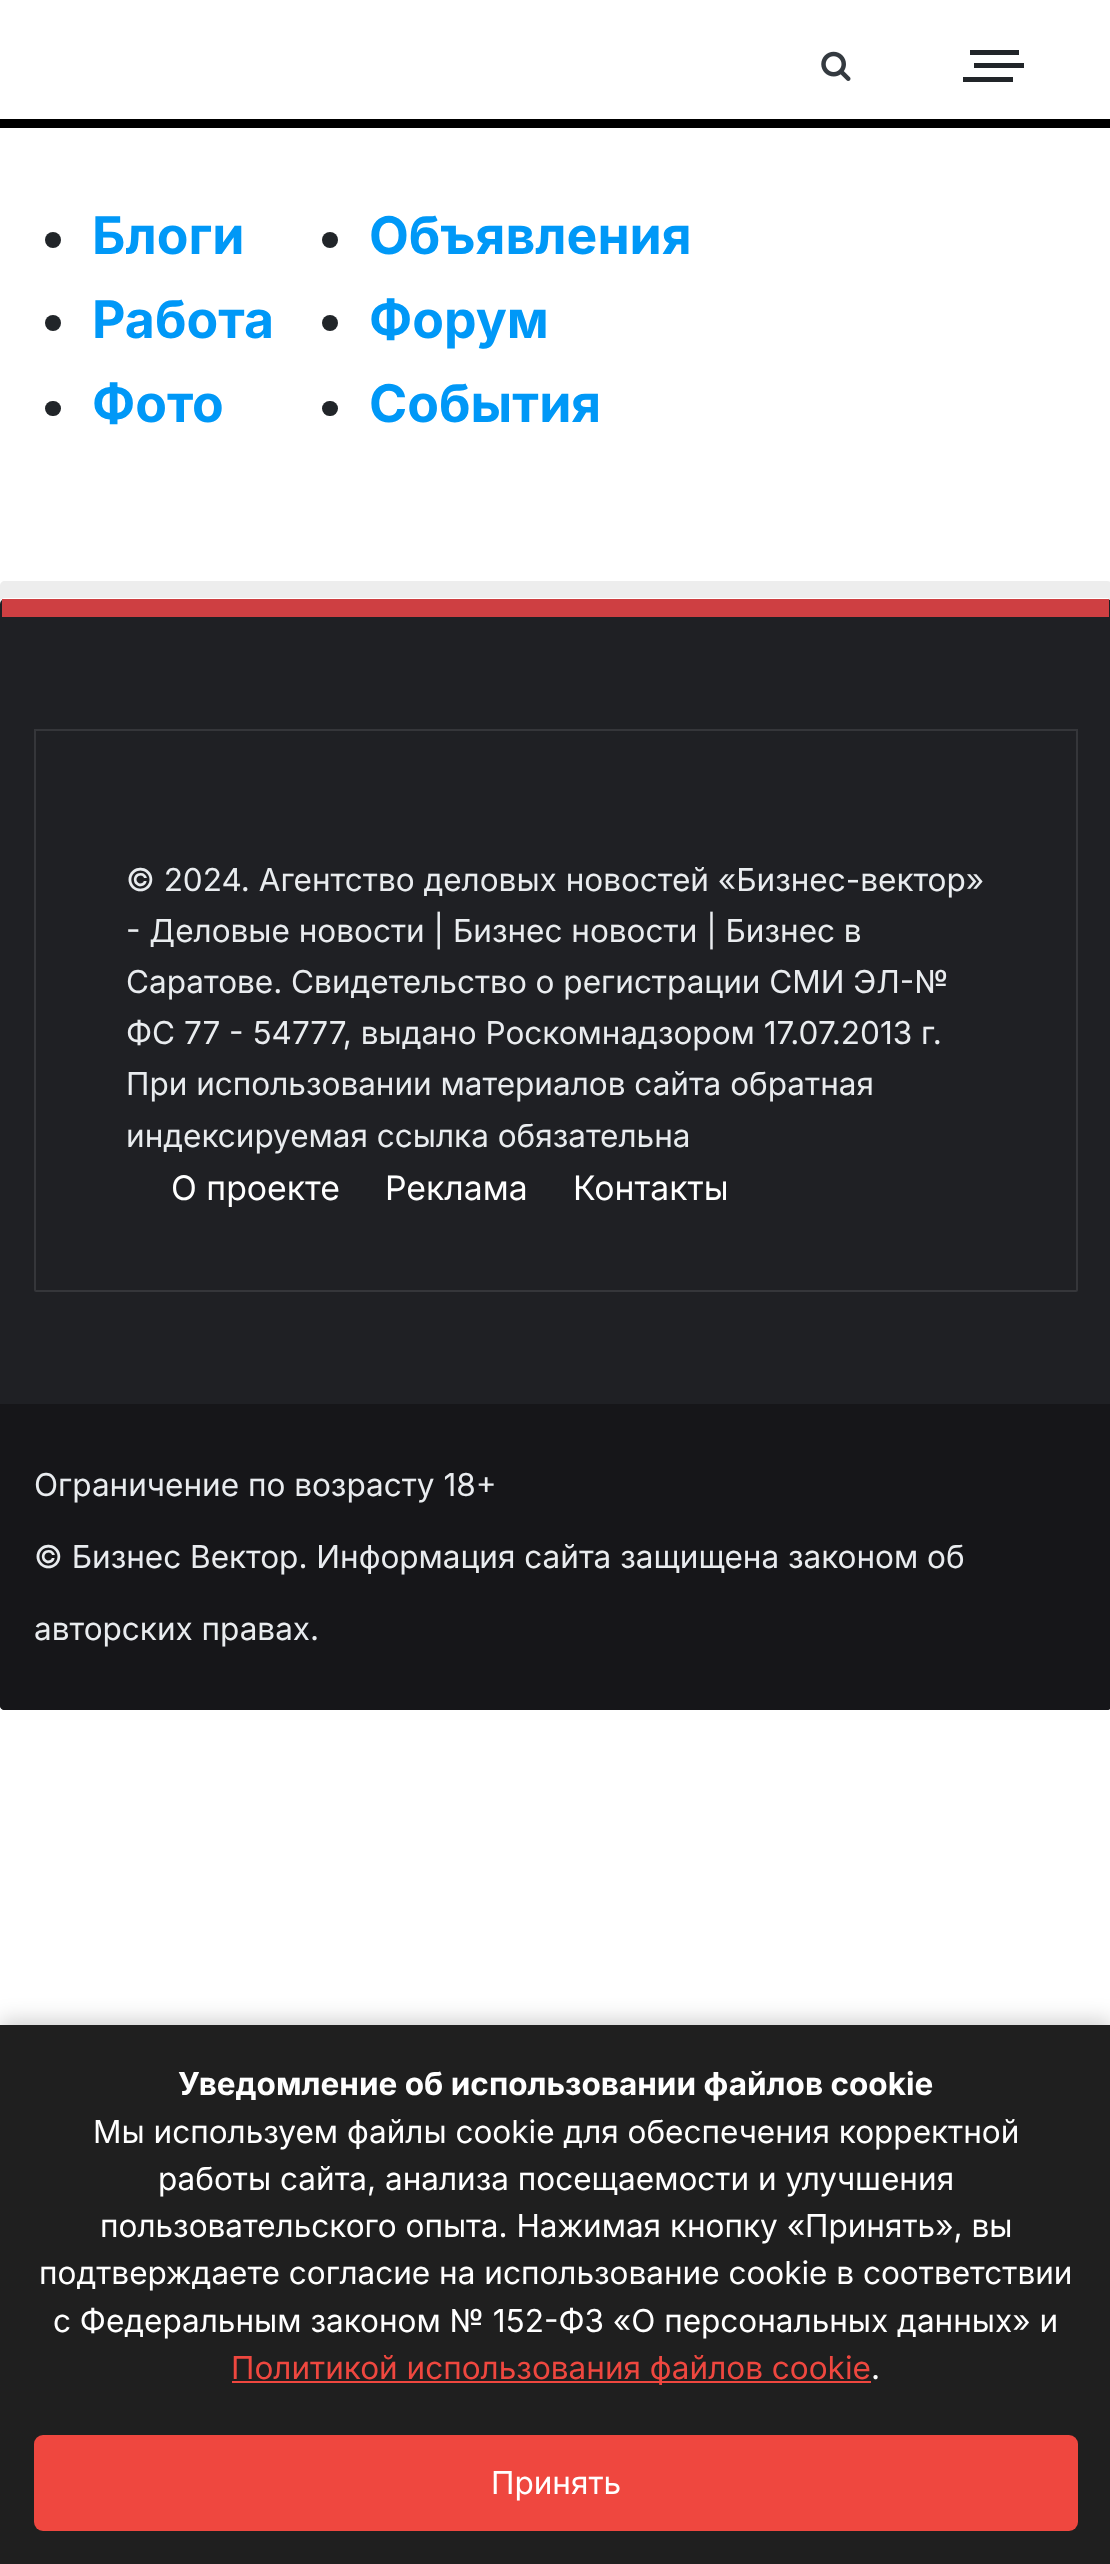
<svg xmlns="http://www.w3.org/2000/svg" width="1110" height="2564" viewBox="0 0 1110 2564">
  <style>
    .t1 { font: bold 51.75px Inter; fill: #0098f7; }
    .t2 { font: 31.5px Inter; fill: #e9ecef; }
    .t3 { font: 33.75px Inter; fill: #fff; }
    .t4 { font: bold 31.5px Inter; fill: #fff; }
    .t5 { font: 31.5px Inter; fill: #fff; }
    .t6 { font: 31.5px Inter; fill: #ef473f; }
  </style>
  <rect width="100%" height="100%" fill="#fff"/>
  <rect x="0" y="119" width="1110" height="9" fill="#000"/>
  <image x="821" y="51" width="30" height="30" href="images/1.png"/>
  <rect x="974" y="63" width="50" height="5" fill="#212529"/>
  <rect x="970" y="50" width="49" height="5" fill="#212529"/>
  <rect x="963" y="77" width="50" height="5" fill="#212529"/>
  <circle cx="53" cy="240" r="8" fill="#212529"/>
  <text x="92" y="254" class="t1">Блоги</text>
  <circle cx="53" cy="323" r="8" fill="#212529"/>
  <text x="92" y="338" class="t1">Работа</text>
  <rect x="45" y="401" width="16" height="15" rx="7.5" fill="#212529"/>
  <text x="92" y="422" class="t1">Фото</text>
  <circle cx="330" cy="240" r="8" fill="#212529"/>
  <text x="369" y="254" class="t1">Объявления</text>
  <circle cx="330" cy="323" r="8" fill="#212529"/>
  <text x="369" y="338" class="t1">Форум</text>
  <rect x="322" y="401" width="16" height="15" rx="7.5" fill="#212529"/>
  <text x="369" y="422" class="t1">События</text>
  <path d="M5 581C2 581 0 583 0 586V603C0 601 2 598 4 598H1107C1109 598 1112 601 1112 603V1689V1687V586C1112 583 1110 581 1107 581Z" fill="#ededed"/>
  <rect x="0" y="599" width="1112" height="1111" rx="5" fill="#1f2024"/>
  <rect x="2" y="599" width="1107" height="18" fill="#ce3f42"/>
  <path d="M35 730H1077V1290C1077 1290.5 1076.5 1291 1076 1291H36C35.5 1291 35 1290.5 35 1290Z" fill="none" stroke="#35363a" stroke-width="2"/>
  <text x="126" y="891" class="t2">© 2024. Агентство деловых новостей «Бизнес-вектор»</text>
  <text x="126" y="942" class="t2">- Деловые новости | Бизнес новости | Бизнес в</text>
  <text x="126" y="993" class="t2">Саратове. Свидетельство о регистрации СМИ ЭЛ-№</text>
  <text x="126" y="1044" class="t2">ФС 77 - 54777, выдано Роскомнадзором 17.07.2013 г.</text>
  <text x="126" y="1095" class="t2">При использовании материалов сайта обратная</text>
  <text x="126" y="1147" class="t2">индексируемая ссылка обязательна</text>
  <text x="171" y="1200" class="t3">О проекте</text>
  <text x="385" y="1200" class="t3">Реклама</text>
  <text x="573" y="1200" class="t3">Контакты</text>
  <path d="M0 1404V1706C0 1708 2 1710 4 1710H1107C1109 1710 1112 1708 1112 1706V1404Z" fill="#161619"/>
  <text x="34" y="1496" class="t2">Ограничение по возрасту 18+</text>
  <text x="34" y="1568" class="t2">© Бизнес Вектор. Информация сайта защищена законом об</text>
  <text x="34" y="1640" class="t2">авторских правах.</text>
  <rect x="0" y="2021" width="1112" height="540" fill="#00000033" filter="blur(11px)"/>
  <rect x="0" y="2025" width="1110" height="539" fill="#1f1f1f"/>
  <text x="178" y="2095" class="t4">Уведомление об использовании файлов cookie</text>
  <text x="93" y="2143" class="t5">Мы используем файлы cookie для обеспечения корректной</text>
  <text x="158" y="2190" class="t5">работы сайта, анализа посещаемости и улучшения</text>
  <text x="100" y="2237" class="t5">пользовательского опыта. Нажимая кнопку «Принять», вы</text>
  <text x="39" y="2284" class="t5">подтверждаете согласие на использование cookie в соответствии</text>
  <text x="53" y="2332" class="t5">с Федеральным законом № 152-ФЗ «О персональных данных» и</text>
  <rect x="232" y="2381" width="639" height="2" fill="#ef473f"/>
  <text x="231" y="2379" class="t6">Политикой использования файлов cookie</text>
  <text x="871" y="2379" class="t5">.</text>
  <rect x="34" y="2435" width="1044" height="96" rx="9" fill="#ef473f"/>
  <text x="491" y="2494" class="t5">Принять</text>
</svg>
